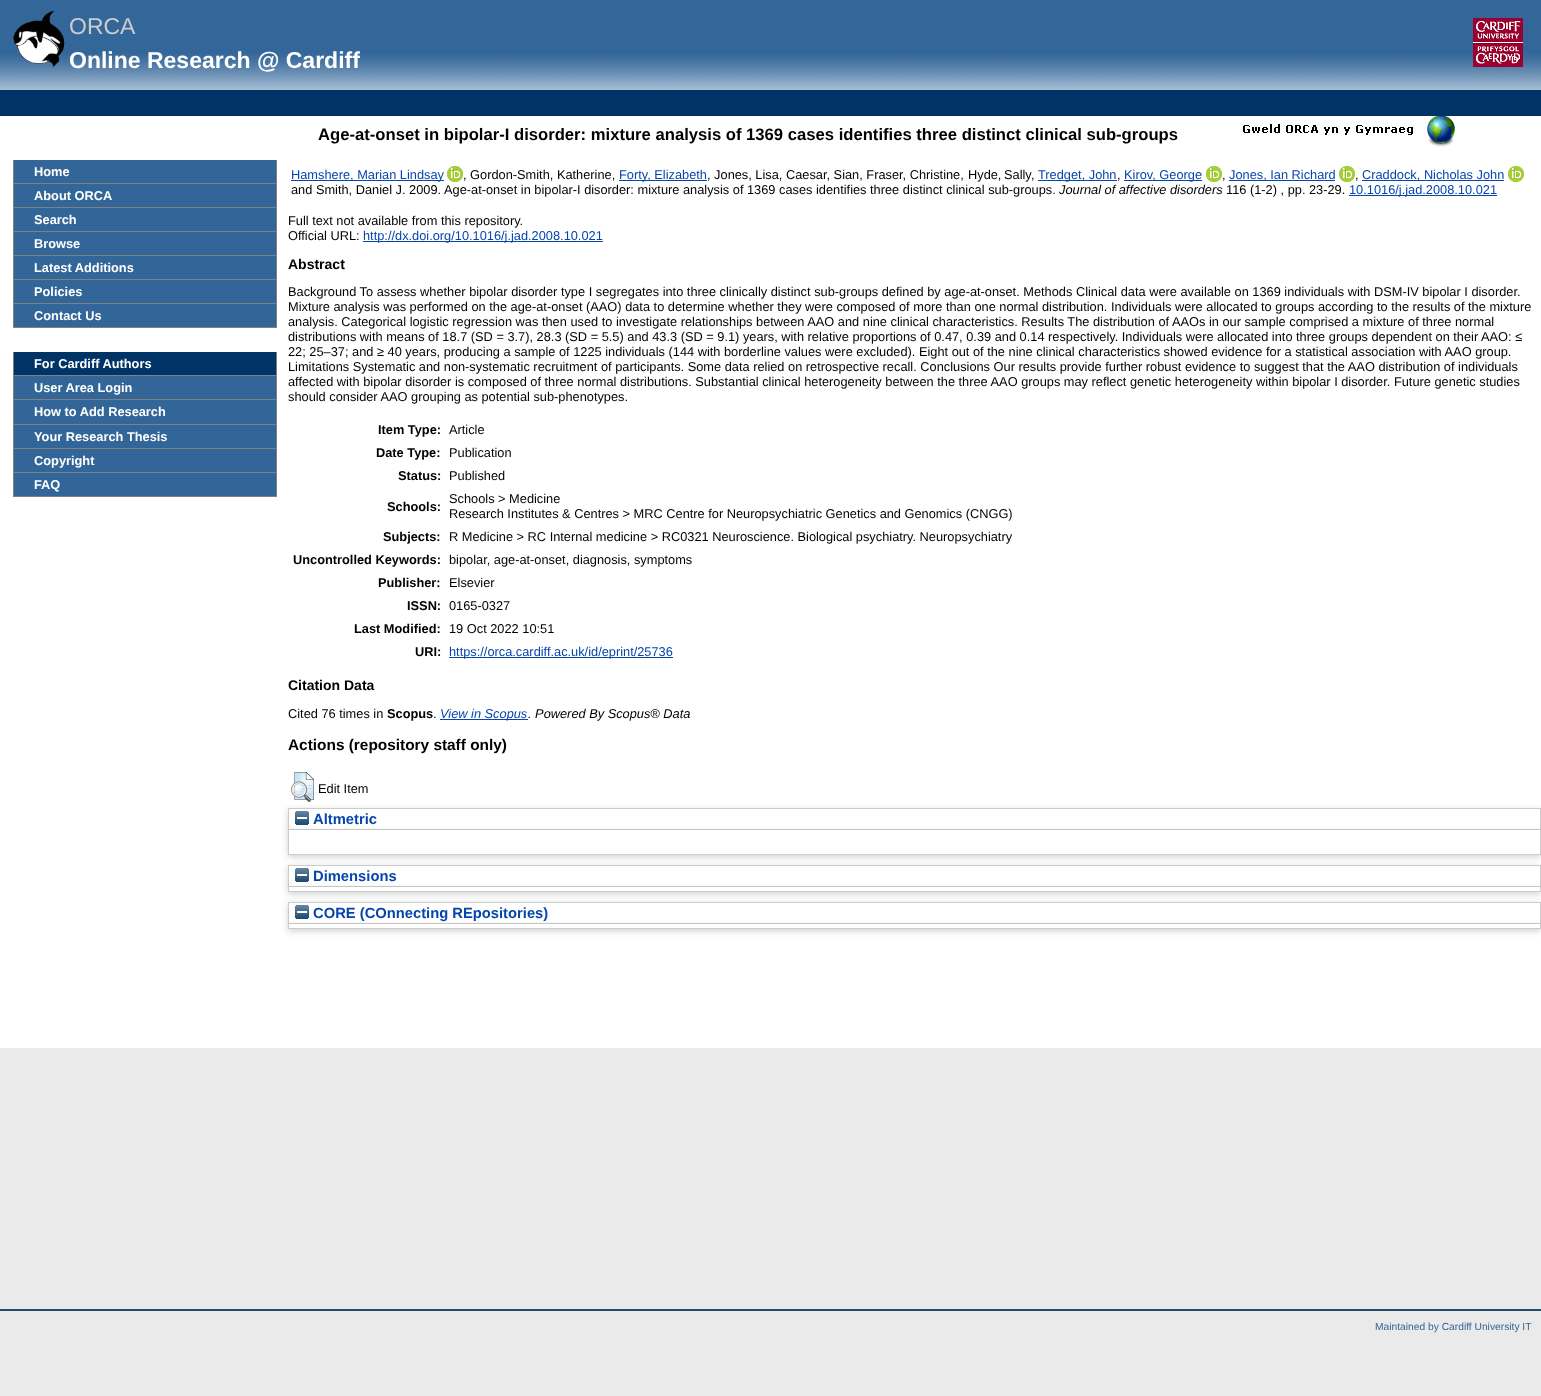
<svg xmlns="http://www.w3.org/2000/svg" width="1541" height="1396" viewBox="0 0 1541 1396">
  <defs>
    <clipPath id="clip1"><path d="M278 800H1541V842H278ZM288 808H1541V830H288Z" clip-rule="evenodd"/></clipPath>
    <filter id="blur1" x="-50%" y="-200%" width="200%" height="500%"><feGaussianBlur stdDeviation="3"/></filter>
    <clipPath id="clip2"><path d="M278 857H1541V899H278ZM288 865H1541V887H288Z" clip-rule="evenodd"/></clipPath>
    <clipPath id="clip3"><path d="M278 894H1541V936H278ZM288 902H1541V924H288Z" clip-rule="evenodd"/></clipPath>
  </defs>
  <rect width="100%" height="100%" fill="#eaeaea"/>
  <rect x="0" y="116" width="1541" height="932" fill="#ffffff"/>
  <image x="0" y="0" width="1541" height="90" href="img1.png"/>
  <image x="13" y="10" width="52" height="57" href="img2.png"/>
  <text x="69" y="34" font-family="Liberation Sans" font-size="23" fill="#cccccc">ORCA</text>
  <image x="1473" y="18" width="50" height="49" href="img3.png"/>
  <text x="69" y="68" font-family="Liberation Sans" font-size="23" font-weight="bold" fill="#ffffff">Online Research @ Cardiff</text>
  <rect x="0" y="90" width="1541" height="26" fill="#003466"/>
  <image x="1243" y="124" width="170" height="11" href="img4.png"/>
  <image x="1427" y="116" width="28" height="31" href="img5.png"/>
  <rect x="14" y="160" width="262" height="23" fill="#326699"/>
  <rect x="276" y="160" width="1" height="168" fill="#808080"/>
  <rect x="13" y="183" width="264" height="1" fill="#808080"/>
  <rect x="13" y="160" width="1" height="24" fill="#808080"/>
  <text x="34" y="176" font-family="Liberation Sans" font-size="12.8" font-weight="bold" fill="#ffffff">Home</text>
  <rect x="14" y="184" width="262" height="23" fill="#326699"/>
  <rect x="13" y="207" width="264" height="1" fill="#808080"/>
  <rect x="13" y="184" width="1" height="24" fill="#808080"/>
  <text x="34" y="200" font-family="Liberation Sans" font-size="12.8" font-weight="bold" fill="#ffffff">About ORCA</text>
  <rect x="14" y="208" width="262" height="23" fill="#326699"/>
  <rect x="13" y="231" width="264" height="1" fill="#808080"/>
  <rect x="13" y="208" width="1" height="24" fill="#808080"/>
  <text x="34" y="224" font-family="Liberation Sans" font-size="12.8" font-weight="bold" fill="#ffffff">Search</text>
  <rect x="14" y="232" width="262" height="23" fill="#326699"/>
  <rect x="13" y="255" width="264" height="1" fill="#808080"/>
  <rect x="13" y="232" width="1" height="24" fill="#808080"/>
  <text x="34" y="248" font-family="Liberation Sans" font-size="12.8" font-weight="bold" fill="#ffffff">Browse</text>
  <rect x="14" y="256" width="262" height="23" fill="#326699"/>
  <rect x="13" y="279" width="264" height="1" fill="#808080"/>
  <rect x="13" y="256" width="1" height="24" fill="#808080"/>
  <text x="34" y="272" font-family="Liberation Sans" font-size="12.8" font-weight="bold" fill="#ffffff">Latest Additions</text>
  <rect x="14" y="280" width="262" height="23" fill="#326699"/>
  <rect x="13" y="303" width="264" height="1" fill="#808080"/>
  <rect x="13" y="280" width="1" height="24" fill="#808080"/>
  <text x="34" y="296" font-family="Liberation Sans" font-size="12.8" font-weight="bold" fill="#ffffff">Policies</text>
  <rect x="14" y="304" width="262" height="23" fill="#326699"/>
  <rect x="13" y="327" width="264" height="1" fill="#808080"/>
  <rect x="13" y="304" width="1" height="24" fill="#808080"/>
  <text x="34" y="320" font-family="Liberation Sans" font-size="12.8" font-weight="bold" fill="#ffffff">Contact Us</text>
  <rect x="14" y="352" width="262" height="23" fill="#003466"/>
  <rect x="276" y="352" width="1" height="145" fill="#808080"/>
  <rect x="13" y="375" width="264" height="1" fill="#808080"/>
  <rect x="13" y="352" width="1" height="24" fill="#808080"/>
  <text x="34" y="368" font-family="Liberation Sans" font-size="12.8" font-weight="bold" fill="#ffffff">For Cardiff Authors</text>
  <rect x="14" y="376" width="262" height="23" fill="#326699"/>
  <rect x="13" y="399" width="264" height="1" fill="#808080"/>
  <rect x="13" y="376" width="1" height="24" fill="#808080"/>
  <text x="34" y="392" font-family="Liberation Sans" font-size="12.8" font-weight="bold" fill="#ffffff">User Area Login</text>
  <rect x="14" y="400" width="262" height="24" fill="#326699"/>
  <rect x="13" y="424" width="264" height="1" fill="#808080"/>
  <rect x="13" y="400" width="1" height="25" fill="#808080"/>
  <text x="34" y="416" font-family="Liberation Sans" font-size="12.8" font-weight="bold" fill="#ffffff">How to Add Research</text>
  <rect x="14" y="425" width="262" height="23" fill="#326699"/>
  <rect x="13" y="448" width="264" height="1" fill="#808080"/>
  <rect x="13" y="425" width="1" height="24" fill="#808080"/>
  <text x="34" y="441" font-family="Liberation Sans" font-size="12.8" font-weight="bold" fill="#ffffff">Your Research Thesis</text>
  <rect x="14" y="449" width="262" height="23" fill="#326699"/>
  <rect x="13" y="472" width="264" height="1" fill="#808080"/>
  <rect x="13" y="449" width="1" height="24" fill="#808080"/>
  <text x="34" y="465" font-family="Liberation Sans" font-size="12.8" font-weight="bold" fill="#ffffff">Copyright</text>
  <rect x="14" y="473" width="262" height="23" fill="#326699"/>
  <rect x="13" y="496" width="264" height="1" fill="#808080"/>
  <rect x="13" y="473" width="1" height="24" fill="#808080"/>
  <text x="34" y="489" font-family="Liberation Sans" font-size="12.8" font-weight="bold" fill="#ffffff">FAQ</text>
  <text x="318" y="140" font-family="Liberation Sans" font-size="16.65" font-weight="bold" fill="#000000">Age-at-onset in bipolar-I disorder: mixture analysis of 1369 cases identifies three distinct clinical sub-groups</text>
  <rect x="291" y="180" width="153" height="1" fill="#0645ad"/>
  <text x="291" y="179" font-family="Liberation Sans" font-size="12.8" fill="#0645ad">Hamshere, Marian Lindsay</text>
  <image x="447" y="166" width="16" height="16" href="img6.png"/>
  <text x="463" y="179" font-family="Liberation Sans" font-size="12.8" fill="#000000">, Gordon-Smith, Katherine,</text>
  <rect x="619" y="180" width="88" height="1" fill="#0645ad"/>
  <text x="619" y="179" font-family="Liberation Sans" font-size="12.8" fill="#0645ad">Forty, Elizabeth</text>
  <text x="707" y="179" font-family="Liberation Sans" font-size="12.8" fill="#000000">, Jones, Lisa, Caesar, Sian, Fraser, Christine,</text>
  <text x="968" y="179" word-spacing="-1" font-family="Liberation Sans" font-size="12.8" fill="#000000">Hyde, Sally</text>
  <text x="1031" y="179" font-family="Liberation Sans" font-size="12.8" fill="#000000">,</text>
  <rect x="1038" y="180" width="79" height="1" fill="#0645ad"/>
  <text x="1038" y="179" font-family="Liberation Sans" font-size="12.8" fill="#0645ad">Tredget, John</text>
  <text x="1117" y="179" font-family="Liberation Sans" font-size="12.8" fill="#000000">,</text>
  <rect x="1124" y="180" width="78" height="1" fill="#0645ad"/>
  <text x="1124" y="179" font-family="Liberation Sans" font-size="12.8" fill="#0645ad">Kirov, George</text>
  <image x="1206" y="166" width="16" height="16" href="img6.png"/>
  <text x="1222" y="179" font-family="Liberation Sans" font-size="12.8" fill="#000000">,</text>
  <rect x="1229" y="180" width="106" height="1" fill="#0645ad"/>
  <text x="1229" y="179" font-family="Liberation Sans" font-size="12.8" fill="#0645ad">Jones, Ian Richard</text>
  <image x="1339" y="166" width="16" height="16" href="img6.png"/>
  <text x="1355" y="179" font-family="Liberation Sans" font-size="12.8" fill="#000000">,</text>
  <rect x="1362" y="180" width="142" height="1" fill="#0645ad"/>
  <text x="1362" y="179" font-family="Liberation Sans" font-size="12.8" fill="#0645ad">Craddock, Nicholas John</text>
  <image x="1508" y="166" width="16" height="16" href="img6.png"/>
  <text x="291" y="194" font-family="Liberation Sans" font-size="12.8" fill="#000000">and Smith, Daniel J. 2009.</text>
  <text x="444" y="194" font-family="Liberation Sans" font-size="12.8" fill="#000000">Age-at-onset in bipolar-I disorder: mixture analysis of 1369 cases identifies three distinct clinical sub-groups.</text>
  <text x="1059" y="194" font-family="Liberation Sans" font-size="12.8" font-style="italic" fill="#000000">Journal of affective disorders</text>
  <text x="1226" y="194" font-family="Liberation Sans" font-size="12.8" fill="#000000">116 (1-2) , pp. 23-29.</text>
  <rect x="1349" y="195" width="148" height="1" fill="#0645ad"/>
  <text x="1349" y="194" font-family="Liberation Sans" font-size="12.8" fill="#0645ad">10.1016/j.jad.2008.10.021</text>
  <text x="288" y="225" font-family="Liberation Sans" font-size="12.8" fill="#000000">Full text not available from this repository.</text>
  <text x="288" y="240" font-family="Liberation Sans" font-size="12.8" fill="#000000">Official URL:</text>
  <rect x="363" y="241" width="240" height="1" fill="#0645ad"/>
  <text x="363" y="240" font-family="Liberation Sans" font-size="12.8" fill="#0645ad">http://dx.doi.org/10.1016/j.jad.2008.10.021</text>
  <text x="288" y="269" font-family="Liberation Sans" font-size="14" font-weight="bold" fill="#000000">Abstract</text>
  <text x="288" y="296" font-family="Liberation Sans" font-size="12.8" fill="#000000">Background To assess whether bipolar disorder type I segregates into three clinically distinct sub-groups defined by age-at-onset. Methods Clinical data were available on 1369 individuals with DSM-IV bipolar I disorder.</text>
  <text x="288" y="311" font-family="Liberation Sans" font-size="12.8" fill="#000000">Mixture analysis was performed on the age-at-onset (AAO) data to determine whether they were composed of more than one normal distribution. Individuals were allocated to groups according to the results of the mixture</text>
  <text x="288" y="326" font-family="Liberation Sans" font-size="12.8" fill="#000000">analysis. Categorical logistic regression was then used to investigate relationships between AAO and nine clinical characteristics. Results The distribution of AAOs in our sample comprised a mixture of three normal</text>
  <text x="288" y="341" font-family="Liberation Sans" font-size="12.8" fill="#000000">distributions with means of 18.7 (SD = 3.7), 28.3 (SD = 5.5) and 43.3 (SD = 9.1) years, with relative proportions of 0.47, 0.39 and 0.14 respectively. Individuals were allocated into three groups dependent on their AAO: ≤</text>
  <text x="288" y="356" font-family="Liberation Sans" font-size="12.8" fill="#000000">22; 25–37; and ≥ 40 years, producing a sample of 1225 individuals (144 with borderline values were excluded). Eight out of the nine clinical characteristics showed evidence for a statistical association with AAO group.</text>
  <text x="288" y="371" font-family="Liberation Sans" font-size="12.8" fill="#000000">Limitations Systematic and non-systematic recruitment of participants. Some data relied on retrospective recall. Conclusions Our results provide further robust evidence to suggest that the AAO distribution of individuals</text>
  <text x="288" y="386" font-family="Liberation Sans" font-size="12.8" fill="#000000">affected with bipolar disorder is composed of three normal distributions. Substantial clinical heterogeneity between the three AAO groups may reflect genetic heterogeneity within bipolar I disorder. Future genetic studies</text>
  <text x="288" y="401" font-family="Liberation Sans" font-size="12.8" fill="#000000">should consider AAO grouping as potential sub-phenotypes.</text>
  <text x="378" y="434" font-family="Liberation Sans" font-size="12.8" font-weight="bold" fill="#000000">Item Type:</text>
  <text x="449" y="434" font-family="Liberation Sans" font-size="12.8" fill="#000000">Article</text>
  <text x="376" y="457" font-family="Liberation Sans" font-size="12.8" font-weight="bold" fill="#000000">Date Type:</text>
  <text x="449" y="457" font-family="Liberation Sans" font-size="12.8" fill="#000000">Publication</text>
  <text x="398" y="480" font-family="Liberation Sans" font-size="12.8" font-weight="bold" fill="#000000">Status:</text>
  <text x="449" y="480" font-family="Liberation Sans" font-size="12.8" fill="#000000">Published</text>
  <text x="387" y="511" font-family="Liberation Sans" font-size="12.8" font-weight="bold" fill="#000000">Schools:</text>
  <text x="449" y="503" font-family="Liberation Sans" font-size="12.8" fill="#000000">Schools &gt; Medicine</text>
  <text x="449" y="518" font-family="Liberation Sans" font-size="12.8" fill="#000000">Research Institutes &amp; Centres &gt; MRC Centre for Neuropsychiatric Genetics and Genomics (CNGG)</text>
  <text x="383" y="541" font-family="Liberation Sans" font-size="12.8" font-weight="bold" fill="#000000">Subjects:</text>
  <text x="449" y="541" font-family="Liberation Sans" font-size="12.8" fill="#000000">R Medicine &gt; RC Internal medicine &gt; RC0321 Neuroscience. Biological psychiatry. Neuropsychiatry</text>
  <text x="293" y="564" font-family="Liberation Sans" font-size="12.8" font-weight="bold" fill="#000000">Uncontrolled Keywords:</text>
  <text x="449" y="564" font-family="Liberation Sans" font-size="12.8" fill="#000000">bipolar, age-at-onset, diagnosis, symptoms</text>
  <text x="378" y="587" font-family="Liberation Sans" font-size="12.8" font-weight="bold" fill="#000000">Publisher:</text>
  <text x="449" y="587" font-family="Liberation Sans" font-size="12.8" fill="#000000">Elsevier</text>
  <text x="407" y="610" font-family="Liberation Sans" font-size="12.8" font-weight="bold" fill="#000000">ISSN:</text>
  <text x="449" y="610" font-family="Liberation Sans" font-size="12.8" fill="#000000">0165-0327</text>
  <text x="354" y="633" font-family="Liberation Sans" font-size="12.8" font-weight="bold" fill="#000000">Last Modified:</text>
  <text x="449" y="633" font-family="Liberation Sans" font-size="12.8" fill="#000000">19 Oct 2022 10:51</text>
  <text x="415" y="656" font-family="Liberation Sans" font-size="12.8" font-weight="bold" fill="#000000">URI:</text>
  <rect x="449" y="657" width="224" height="1" fill="#0645ad"/>
  <text x="449" y="656" font-family="Liberation Sans" font-size="12.8" fill="#0645ad">https://orca.cardiff.ac.uk/id/eprint/25736</text>
  <text x="288" y="690" font-family="Liberation Sans" font-size="14" font-weight="bold" fill="#000000">Citation Data</text>
  <text x="288" y="718" font-family="Liberation Sans" font-size="12.8" fill="#000000">Cited 76 times in</text>
  <text x="387" y="718" font-family="Liberation Sans" font-size="12.8" font-weight="bold" fill="#000000">Scopus</text>
  <text x="433" y="718" font-family="Liberation Sans" font-size="12.8" fill="#000000">.</text>
  <rect x="440" y="719" width="88" height="1" fill="#0645ad"/>
  <text x="440" y="718" font-family="Liberation Sans" font-size="12.8" font-style="italic" fill="#0645ad">View in Scopus</text>
  <text x="528" y="718" font-family="Liberation Sans" font-size="12.8" font-style="italic" fill="#000000">. Powered By Scopus® Data</text>
  <text x="288" y="750" font-family="Liberation Sans" font-size="15.4" font-weight="bold" fill="#000000">Actions (repository staff only)</text>
  <g clip-path="url(#clip1)">
    <rect x="288" y="810" width="1253" height="22" fill="#646464" fill-opacity="0.3" filter="url(#blur1)"/>
  </g>
  <image x="291" y="772" width="23" height="30" href="img7.png"/>
  <text x="318" y="793" font-family="Liberation Sans" font-size="12.8" fill="#000000">Edit Item</text>
  <rect x="288.5" y="808.5" width="1252" height="21" fill="none" stroke="#cccccc"/>
  <rect x="288" y="832" width="1253" height="25" fill="#646464" fill-opacity="0.3" filter="url(#blur1)"/>
  <image x="295" y="811" width="14" height="14" href="img8.png"/>
  <text x="313" y="824" font-family="Liberation Sans" font-size="14.75" font-weight="bold" fill="#0645ad">Altmetric</text>
  <rect x="289" y="830" width="1251" height="24" fill="#ffffff"/>
  <rect x="1540" y="830" width="1" height="25" fill="#cccccc"/>
  <rect x="288" y="854" width="1253" height="1" fill="#cccccc"/>
  <rect x="288" y="830" width="1" height="25" fill="#cccccc"/>
  <g clip-path="url(#clip2)">
    <rect x="288" y="867" width="1253" height="22" fill="#646464" fill-opacity="0.3" filter="url(#blur1)"/>
  </g>
  <rect x="288.5" y="865.5" width="1252" height="21" fill="none" stroke="#cccccc"/>
  <rect x="288" y="889" width="1253" height="5" fill="#646464" fill-opacity="0.3" filter="url(#blur1)"/>
  <image x="295" y="868" width="14" height="14" href="img8.png"/>
  <text x="313" y="881" font-family="Liberation Sans" font-size="14.75" font-weight="bold" fill="#0645ad">Dimensions</text>
  <rect x="288" y="887" width="1253" height="4" fill="#ffffff"/>
  <rect x="1540" y="887" width="1" height="5" fill="#cccccc"/>
  <rect x="288" y="891" width="1253" height="1" fill="#cccccc"/>
  <rect x="288" y="887" width="1" height="5" fill="#cccccc"/>
  <g clip-path="url(#clip3)">
    <rect x="288" y="904" width="1253" height="22" fill="#646464" fill-opacity="0.3" filter="url(#blur1)"/>
  </g>
  <rect x="288.5" y="902.5" width="1252" height="21" fill="none" stroke="#cccccc"/>
  <rect x="288" y="926" width="1253" height="5" fill="#646464" fill-opacity="0.3" filter="url(#blur1)"/>
  <image x="295" y="905" width="14" height="14" href="img8.png"/>
  <text x="313" y="918" font-family="Liberation Sans" font-size="14.75" font-weight="bold" fill="#0645ad">CORE (COnnecting REpositories)</text>
  <rect x="288" y="924" width="1253" height="4" fill="#ffffff"/>
  <rect x="1540" y="924" width="1" height="5" fill="#cccccc"/>
  <rect x="288" y="928" width="1253" height="1" fill="#cccccc"/>
  <rect x="288" y="924" width="1" height="5" fill="#cccccc"/>
  <rect x="0" y="1309" width="1541" height="2" fill="#204f76"/>
  <text x="1375" y="1330" font-family="Liberation Sans" font-size="10.25" fill="#336699">Maintained by Cardiff University IT</text>
</svg>
